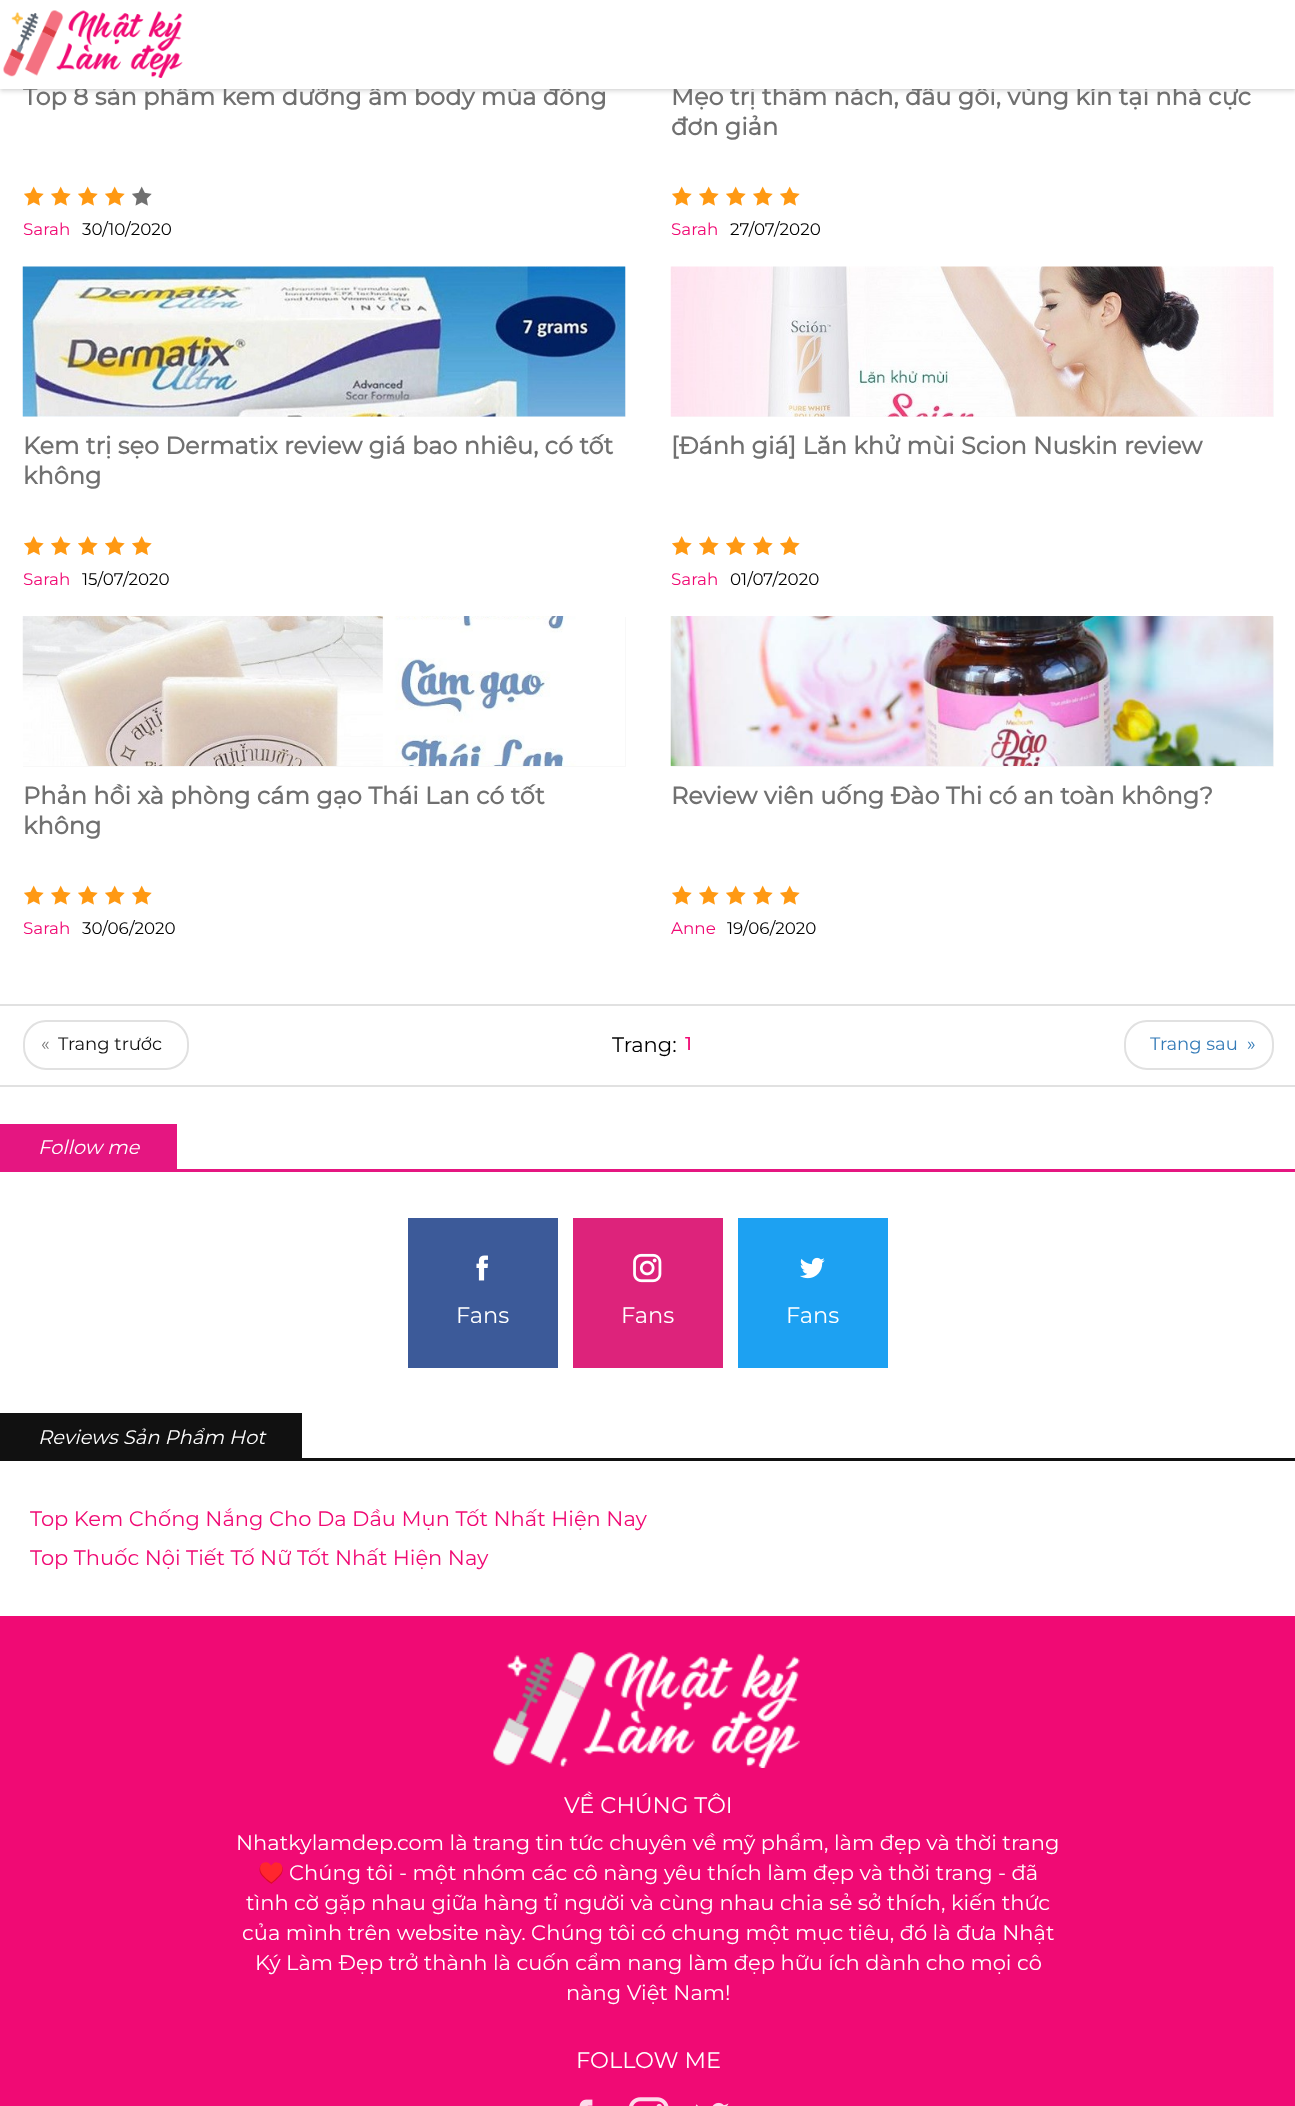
<svg xmlns="http://www.w3.org/2000/svg" width="1295" height="2106" viewBox="0 0 1295 2106">
  <defs>
    <filter id="blur1" x="-50%" y="-200%" width="200%" height="500%"><feGaussianBlur stdDeviation="2"/></filter>
    <filter id="blur2" x="-50%" y="-200%" width="200%" height="500%"><feGaussianBlur stdDeviation="1.5"/></filter>
  </defs>
  <rect width="100%" height="100%" fill="#ffffff"/>
  <rect x="0" y="3" width="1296" height="89" fill="#000000" fill-opacity="0.1" filter="url(#blur1)"/>
  <rect x="0" y="0" width="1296" height="89" fill="#000000" fill-opacity="0.1" filter="url(#blur2)"/>
  <text x="23" y="105" font-family="Montserrat" font-size="24" font-weight="bold" fill="#707070">Top 8 sản phẩm kem dưỡng ẩm body mùa đông</text>
  <text x="671" y="105" font-family="Montserrat" font-size="24" font-weight="bold" fill="#707070">Mẹo trị thâm nách, đầu gối, vùng kín tại nhà cực</text>
  <rect x="0" y="0" width="1295" height="89" fill="#ffffff"/>
  <image x="3" y="10" width="180" height="68" href="img1.png"/>
  <image x="24" y="186" width="20" height="20" href="img2.png"/>
  <image x="51" y="186" width="20" height="20" href="img2.png"/>
  <image x="78" y="186" width="20" height="20" href="img2.png"/>
  <image x="105" y="186" width="20" height="20" href="img2.png"/>
  <image x="132" y="186" width="20" height="20" href="img3.png"/>
  <text x="23" y="235" font-family="Montserrat" font-size="16.75" fill="#f00a74">Sarah</text>
  <text x="82" y="235" font-family="Montserrat" font-size="16.75" fill="#000000">30/10/2020</text>
  <text x="671" y="135" font-family="Montserrat" font-size="24" font-weight="bold" fill="#707070">đơn giản</text>
  <image x="672" y="186" width="20" height="20" href="img2.png"/>
  <image x="699" y="186" width="20" height="20" href="img2.png"/>
  <image x="726" y="186" width="20" height="20" href="img2.png"/>
  <image x="753" y="186" width="20" height="20" href="img2.png"/>
  <image x="780" y="186" width="20" height="20" href="img2.png"/>
  <text x="671" y="235" font-family="Montserrat" font-size="16.75" fill="#f00a74">Sarah</text>
  <text x="730" y="235" font-family="Montserrat" font-size="16.75" fill="#000000">27/07/2020</text>
  <rect x="23" y="267" width="603" height="150" fill="#f8f8f8"/>
  <image x="22" y="266" width="604" height="151" href="img4.png"/>
  <text x="23" y="454" font-family="Montserrat" font-size="24" font-weight="bold" fill="#707070">Kem trị sẹo Dermatix review giá bao nhiêu, có tốt</text>
  <text x="23" y="484" font-family="Montserrat" font-size="24" font-weight="bold" fill="#707070">không</text>
  <image x="24" y="536" width="20" height="19" href="img5.png"/>
  <image x="51" y="536" width="20" height="19" href="img5.png"/>
  <image x="78" y="536" width="20" height="19" href="img5.png"/>
  <image x="105" y="536" width="20" height="19" href="img5.png"/>
  <image x="132" y="536" width="20" height="19" href="img5.png"/>
  <text x="23" y="585" font-family="Montserrat" font-size="16.75" fill="#f00a74">Sarah</text>
  <text x="82" y="585" font-family="Montserrat" font-size="16.75" fill="#000000">15/07/2020</text>
  <rect x="671" y="267" width="603" height="150" fill="#f8f8f8"/>
  <image x="670" y="266" width="603" height="151" href="img6.png"/>
  <text x="671" y="454" font-family="Montserrat" font-size="24" font-weight="bold" fill="#707070">[Đánh giá] Lăn khử mùi Scion Nuskin review</text>
  <image x="672" y="536" width="20" height="19" href="img5.png"/>
  <image x="699" y="536" width="20" height="19" href="img5.png"/>
  <image x="726" y="536" width="20" height="19" href="img5.png"/>
  <image x="753" y="536" width="20" height="19" href="img5.png"/>
  <image x="780" y="536" width="20" height="19" href="img5.png"/>
  <text x="671" y="585" font-family="Montserrat" font-size="16.75" fill="#f00a74">Sarah</text>
  <text x="730" y="585" font-family="Montserrat" font-size="16.75" fill="#000000">01/07/2020</text>
  <rect x="23" y="617" width="603" height="150" fill="#f8f8f8"/>
  <image x="22" y="616" width="603" height="150" href="img7.png"/>
  <text x="23" y="804" font-family="Montserrat" font-size="24" font-weight="bold" fill="#707070">Phản hồi xà phòng cám gạo Thái Lan có tốt</text>
  <text x="23" y="834" font-family="Montserrat" font-size="24" font-weight="bold" fill="#707070">không</text>
  <image x="24" y="885" width="20" height="20" href="img2.png"/>
  <image x="51" y="885" width="20" height="20" href="img2.png"/>
  <image x="78" y="885" width="20" height="20" href="img2.png"/>
  <image x="105" y="885" width="20" height="20" href="img2.png"/>
  <image x="132" y="885" width="20" height="20" href="img2.png"/>
  <text x="23" y="934" font-family="Montserrat" font-size="16.75" fill="#f00a74">Sarah</text>
  <text x="82" y="934" font-family="Montserrat" font-size="16.75" fill="#000000">30/06/2020</text>
  <rect x="671" y="617" width="603" height="150" fill="#f8f8f8"/>
  <image x="670" y="616" width="604" height="150" href="img8.png"/>
  <text x="671" y="804" font-family="Montserrat" font-size="24" font-weight="bold" fill="#707070">Review viên uống Đào Thi có an toàn không?</text>
  <image x="672" y="885" width="20" height="20" href="img2.png"/>
  <image x="699" y="885" width="20" height="20" href="img2.png"/>
  <image x="726" y="885" width="20" height="20" href="img2.png"/>
  <image x="753" y="885" width="20" height="20" href="img2.png"/>
  <image x="780" y="885" width="20" height="20" href="img2.png"/>
  <text x="671" y="934" font-family="Montserrat" font-size="16.75" fill="#f00a74">Anne</text>
  <text x="727" y="934" font-family="Montserrat" font-size="16.75" fill="#000000">19/06/2020</text>
  <rect x="0" y="1004" width="1295" height="2" fill="#e1e1e1"/>
  <rect x="0" y="1085" width="1295" height="2" fill="#e1e1e1"/>
  <rect x="24" y="1021" width="164" height="48" rx="22" fill="none" stroke="#e1e1e1" stroke-width="2"/>
  <text x="41" y="1050" font-family="Montserrat" font-size="18" fill="#777777">«</text>
  <text x="58" y="1050" font-family="Montserrat" font-size="18" fill="#111111">Trang trước</text>
  <text x="612" y="1052" font-family="Montserrat" font-size="21" fill="#000000">Trang:</text>
  <text x="685" y="1050" font-family="Montserrat" font-size="18" font-weight="bold" fill="#f00a74">1</text>
  <rect x="1125" y="1021" width="148" height="48" rx="22" fill="none" stroke="#e1e1e1" stroke-width="2"/>
  <text x="1150" y="1050" font-family="Montserrat" font-size="18" fill="#337ab7">Trang sau</text>
  <text x="1247" y="1050" font-family="Montserrat" font-size="18" fill="#337ab7">»</text>
  <rect x="0" y="1169" width="1295" height="3" fill="#e51681"/>
  <rect x="0" y="1124" width="177" height="45" fill="#e51681"/>
  <text x="38" y="1154" font-family="Montserrat" font-size="19.5" font-style="italic" fill="#ffffff">Follow me</text>
  <rect x="408" y="1218" width="150" height="150" fill="#3c5a99"/>
  <image x="476" y="1255" width="12" height="26" href="img9.png"/>
  <text x="456" y="1323" font-family="Montserrat" font-size="22.5" fill="#ffffff">Fans</text>
  <rect x="573" y="1218" width="150" height="150" fill="#dd237b"/>
  <image x="633" y="1253" width="29" height="30" href="img10.png"/>
  <text x="621" y="1323" font-family="Montserrat" font-size="22.5" fill="#ffffff">Fans</text>
  <rect x="738" y="1218" width="150" height="150" fill="#1da1f2"/>
  <image x="800" y="1257" width="25" height="22" href="img11.png"/>
  <text x="786" y="1323" font-family="Montserrat" font-size="22.5" fill="#ffffff">Fans</text>
  <rect x="0" y="1458" width="1295" height="3" fill="#111111"/>
  <rect x="0" y="1413" width="302" height="45" fill="#111111"/>
  <text x="38" y="1444" font-family="Montserrat" font-size="19.5" font-style="italic" fill="#ffffff">Reviews Sản Phẩm Hot</text>
  <text x="30" y="1526" font-family="Montserrat" font-size="21" fill="#f00a74">Top Kem Chống Nắng Cho Da Dầu Mụn Tốt Nhất Hiện Nay</text>
  <text x="30" y="1565" font-family="Montserrat" font-size="21" fill="#f00a74">Top Thuốc Nội Tiết Tố Nữ Tốt Nhất Hiện Nay</text>
  <rect x="0" y="1616" width="1295" height="490" fill="#f00a74"/>
  <image x="493" y="1652" width="307" height="116" href="img12.png"/>
  <text x="564" y="1813" font-family="Montserrat" font-size="22.5" fill="#ffffff">VỀ CHÚNG TÔI</text>
  <text x="236" y="1850" font-family="Montserrat" font-size="21" fill="#ffffff">Nhatkylamdep.com là trang tin tức chuyên về mỹ phẩm, làm đẹp và thời trang</text>
  <text x="258" y="1880" font-family="Noto Color Emoji" font-size="21" fill="#ffffff">♥️</text>
  <text x="289" y="1880" font-family="Montserrat" font-size="21" fill="#ffffff">Chúng tôi - một nhóm các cô nàng yêu thích làm đẹp và thời trang - đã</text>
  <text x="246" y="1910" font-family="Montserrat" font-size="21" fill="#ffffff">tình cờ gặp nhau giữa hàng tỉ người và cùng nhau chia sẻ sở thích, kiến thức</text>
  <text x="242" y="1940" font-family="Montserrat" font-size="21" fill="#ffffff">của mình trên website này. Chúng tôi có chung một mục tiêu, đó là đưa Nhật</text>
  <text x="255" y="1970" font-family="Montserrat" font-size="21" fill="#ffffff">Ký Làm Đẹp trở thành là cuốn cẩm nang làm đẹp hữu ích dành cho mọi cô</text>
  <text x="566" y="2000" font-family="Montserrat" font-size="21" fill="#ffffff">nàng Việt Nam!</text>
  <text x="576" y="2068" font-family="Montserrat" font-size="22.5" fill="#ffffff">FOLLOW ME</text>
  <image x="579" y="2099" width="14" height="7" href="img13.png"/>
  <image x="629" y="2097" width="40" height="9" href="img14.png"/>
  <image x="695" y="2102" width="34" height="4" href="img15.png"/>
</svg>
